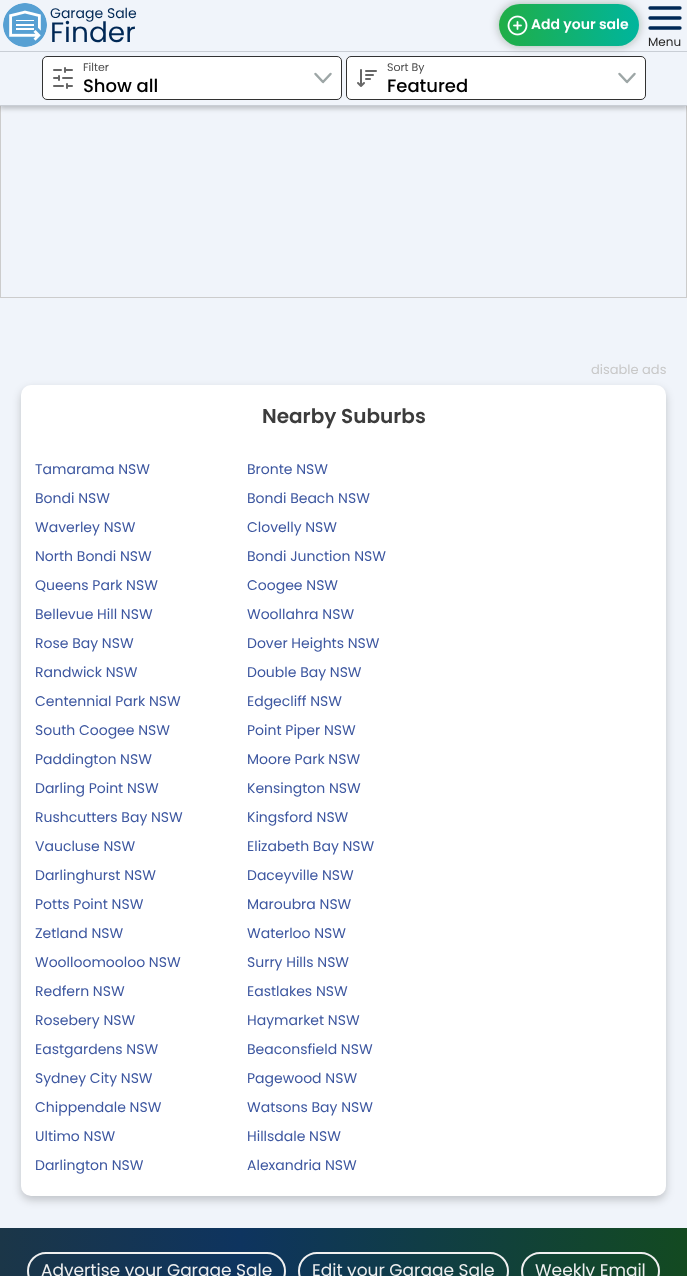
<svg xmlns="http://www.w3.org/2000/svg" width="687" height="1276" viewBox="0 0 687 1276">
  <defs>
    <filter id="blur1" x="-50%" y="-200%" width="200%" height="500%"><feGaussianBlur stdDeviation="2"/></filter>
    <filter id="blur2" x="-50%" y="-200%" width="200%" height="500%"><feGaussianBlur stdDeviation="5"/></filter>
    <linearGradient id="g1" gradientUnits="userSpaceOnUse" x1="499" y1="25" x2="639" y2="25"><stop offset="0" stop-color="#20ae46"/><stop offset="1" stop-color="#00b59d"/></linearGradient>
    <filter id="blur3" x="-50%" y="-200%" width="200%" height="500%"><feGaussianBlur stdDeviation="4"/></filter>
    <linearGradient id="g2" gradientUnits="userSpaceOnUse" x1="0" y1="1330" x2="687" y2="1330"><stop offset="0" stop-color="#1b3648"/><stop offset="0.35" stop-color="#0e345f"/><stop offset="1" stop-color="#134a21"/></linearGradient>
  </defs>
  <rect width="100%" height="100%" fill="#f0f4fa"/>
  <rect x="0.5" y="16.5" width="686" height="281" fill="none" stroke="#cccccc"/>
  <rect x="0" y="54" width="687" height="55" fill="#000000" fill-opacity="0.2" filter="url(#blur1)"/>
  <rect x="0" y="16" width="687" height="35" fill="#f0f4fa"/>
  <rect x="0" y="51" width="687" height="1" fill="#c9ced5"/>
  <image x="3" y="3" width="44" height="44" href="img1.png"/>
  <text x="50" y="18" font-family="Poppins" font-size="14" fill="#002855">Garage Sale</text>
  <text x="50" y="42" font-family="Poppins" font-size="28" fill="#002855">Finder</text>
  <rect x="0" y="52" width="687" height="53" fill="#f0f4fa"/>
  <rect x="346.5" y="56.5" width="299" height="43" rx="4.5" fill="#ffffff" stroke="#323232"/>
  <rect x="499" y="4" width="140" height="42" rx="21" fill="#052407" fill-opacity="0.33" filter="url(#blur2)"/>
  <rect x="499" y="4" width="140" height="42" rx="21" fill="url(#g1)"/>
  <image x="507" y="15" width="21" height="21" href="img2.png"/>
  <text x="531" y="29" font-family="Poppins" font-size="14" font-weight="600" fill="#ffffff">Add your sale</text>
  <path d="M650 18H680M650 8H680M650 28H680" fill="none" stroke="#002855" stroke-width="3.3" stroke-linecap="round" stroke-linejoin="round"/>
  <text x="648" y="46" font-family="Poppins" font-size="12" fill="#252525">Menu</text>
  <rect x="0" y="105" width="687" height="1" fill="#c9ced5"/>
  <rect x="42.5" y="56.5" width="299" height="43" rx="4.5" fill="#ffffff" stroke="#323232"/>
  <image x="53" y="67" width="20" height="22" href="img3.png"/>
  <text x="83" y="71" font-family="Poppins" font-size="11" fill="#4b4b4b">Filter</text>
  <path d="M315.5 74L323 82L330.5 74" fill="none" stroke="#9da6a6" stroke-width="2.5" stroke-linecap="round" stroke-linejoin="round"/>
  <text x="83" y="92" font-family="Poppins" font-size="18" font-weight="500" fill="#000000">Show all</text>
  <image x="357" y="69" width="20" height="18" href="img4.png"/>
  <text x="387" y="71" font-family="Poppins" font-size="11" fill="#4b4b4b">Sort By</text>
  <path d="M619.5 74L627 82L634.5 74" fill="none" stroke="#9da6a6" stroke-width="2.5" stroke-linecap="round" stroke-linejoin="round"/>
  <text x="387" y="92" font-family="Poppins" font-size="18" font-weight="500" fill="#000000">Featured</text>
  <text x="591" y="374" font-family="Poppins" font-size="13" fill="#c8c8c8">disable ads</text>
  <rect x="21" y="389" width="645" height="811" rx="10" fill="#000000" fill-opacity="0.2" filter="url(#blur3)"/>
  <rect x="21" y="385" width="645" height="811" rx="10" fill="#ffffff"/>
  <text x="262" y="423" font-family="Poppins" font-size="20" font-weight="600" fill="#3c3c3c">Nearby Suburbs</text>
  <text x="35" y="474" font-family="Poppins" font-size="14" fill="#3d57a0">Tamarama NSW</text>
  <text x="247" y="474" font-family="Poppins" font-size="14" fill="#3d57a0">Bronte NSW</text>
  <text x="35" y="503" font-family="Poppins" font-size="14" fill="#3d57a0">Bondi NSW</text>
  <text x="247" y="503" font-family="Poppins" font-size="14" fill="#3d57a0">Bondi Beach NSW</text>
  <text x="35" y="532" font-family="Poppins" font-size="14" fill="#3d57a0">Waverley NSW</text>
  <text x="247" y="532" font-family="Poppins" font-size="14" fill="#3d57a0">Clovelly NSW</text>
  <text x="35" y="561" font-family="Poppins" font-size="14" fill="#3d57a0">North Bondi NSW</text>
  <text x="247" y="561" font-family="Poppins" font-size="14" fill="#3d57a0">Bondi Junction NSW</text>
  <text x="35" y="590" font-family="Poppins" font-size="14" fill="#3d57a0">Queens Park NSW</text>
  <text x="247" y="590" font-family="Poppins" font-size="14" fill="#3d57a0">Coogee NSW</text>
  <text x="35" y="619" font-family="Poppins" font-size="14" fill="#3d57a0">Bellevue Hill NSW</text>
  <text x="247" y="619" font-family="Poppins" font-size="14" fill="#3d57a0">Woollahra NSW</text>
  <text x="35" y="648" font-family="Poppins" font-size="14" fill="#3d57a0">Rose Bay NSW</text>
  <text x="247" y="648" font-family="Poppins" font-size="14" fill="#3d57a0">Dover Heights NSW</text>
  <text x="35" y="677" font-family="Poppins" font-size="14" fill="#3d57a0">Randwick NSW</text>
  <text x="247" y="677" font-family="Poppins" font-size="14" fill="#3d57a0">Double Bay NSW</text>
  <text x="35" y="706" font-family="Poppins" font-size="14" fill="#3d57a0">Centennial Park NSW</text>
  <text x="247" y="706" font-family="Poppins" font-size="14" fill="#3d57a0">Edgecliff NSW</text>
  <text x="35" y="735" font-family="Poppins" font-size="14" fill="#3d57a0">South Coogee NSW</text>
  <text x="247" y="735" font-family="Poppins" font-size="14" fill="#3d57a0">Point Piper NSW</text>
  <text x="35" y="764" font-family="Poppins" font-size="14" fill="#3d57a0">Paddington NSW</text>
  <text x="247" y="764" font-family="Poppins" font-size="14" fill="#3d57a0">Moore Park NSW</text>
  <text x="35" y="793" font-family="Poppins" font-size="14" fill="#3d57a0">Darling Point NSW</text>
  <text x="247" y="793" font-family="Poppins" font-size="14" fill="#3d57a0">Kensington NSW</text>
  <text x="35" y="822" font-family="Poppins" font-size="14" fill="#3d57a0">Rushcutters Bay NSW</text>
  <text x="247" y="822" font-family="Poppins" font-size="14" fill="#3d57a0">Kingsford NSW</text>
  <text x="35" y="851" font-family="Poppins" font-size="14" fill="#3d57a0">Vaucluse NSW</text>
  <text x="247" y="851" font-family="Poppins" font-size="14" fill="#3d57a0">Elizabeth Bay NSW</text>
  <text x="35" y="880" font-family="Poppins" font-size="14" fill="#3d57a0">Darlinghurst NSW</text>
  <text x="247" y="880" font-family="Poppins" font-size="14" fill="#3d57a0">Daceyville NSW</text>
  <text x="35" y="909" font-family="Poppins" font-size="14" fill="#3d57a0">Potts Point NSW</text>
  <text x="247" y="909" font-family="Poppins" font-size="14" fill="#3d57a0">Maroubra NSW</text>
  <text x="35" y="938" font-family="Poppins" font-size="14" fill="#3d57a0">Zetland NSW</text>
  <text x="247" y="938" font-family="Poppins" font-size="14" fill="#3d57a0">Waterloo NSW</text>
  <text x="35" y="967" font-family="Poppins" font-size="14" fill="#3d57a0">Woolloomooloo NSW</text>
  <text x="247" y="967" font-family="Poppins" font-size="14" fill="#3d57a0">Surry Hills NSW</text>
  <text x="35" y="996" font-family="Poppins" font-size="14" fill="#3d57a0">Redfern NSW</text>
  <text x="247" y="996" font-family="Poppins" font-size="14" fill="#3d57a0">Eastlakes NSW</text>
  <text x="35" y="1025" font-family="Poppins" font-size="14" fill="#3d57a0">Rosebery NSW</text>
  <text x="247" y="1025" font-family="Poppins" font-size="14" fill="#3d57a0">Haymarket NSW</text>
  <text x="35" y="1054" font-family="Poppins" font-size="14" fill="#3d57a0">Eastgardens NSW</text>
  <text x="247" y="1054" font-family="Poppins" font-size="14" fill="#3d57a0">Beaconsfield NSW</text>
  <text x="35" y="1083" font-family="Poppins" font-size="14" fill="#3d57a0">Sydney City NSW</text>
  <text x="247" y="1083" font-family="Poppins" font-size="14" fill="#3d57a0">Pagewood NSW</text>
  <text x="35" y="1112" font-family="Poppins" font-size="14" fill="#3d57a0">Chippendale NSW</text>
  <text x="247" y="1112" font-family="Poppins" font-size="14" fill="#3d57a0">Watsons Bay NSW</text>
  <text x="35" y="1141" font-family="Poppins" font-size="14" fill="#3d57a0">Ultimo NSW</text>
  <text x="247" y="1141" font-family="Poppins" font-size="14" fill="#3d57a0">Hillsdale NSW</text>
  <text x="35" y="1170" font-family="Poppins" font-size="14" fill="#3d57a0">Darlington NSW</text>
  <text x="247" y="1170" font-family="Poppins" font-size="14" fill="#3d57a0">Alexandria NSW</text>
  <rect x="0" y="1228" width="687" height="48" fill="url(#g2)"/>
  <rect x="28" y="1253" width="257" height="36" rx="18" fill="none" stroke="#f0f0f0" stroke-width="2"/>
  <text x="41" y="1276" font-family="Poppins" font-size="17" fill="#f0f0f0">Advertise your Garage Sale</text>
  <rect x="299" y="1253" width="209" height="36" rx="18" fill="none" stroke="#f0f0f0" stroke-width="2"/>
  <text x="312" y="1276" font-family="Poppins" font-size="17" fill="#f0f0f0">Edit your Garage Sale</text>
  <rect x="522" y="1253" width="137" height="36" rx="18" fill="none" stroke="#f0f0f0" stroke-width="2"/>
  <text x="535" y="1276" font-family="Poppins" font-size="17" fill="#f0f0f0">Weekly Email</text>
</svg>
